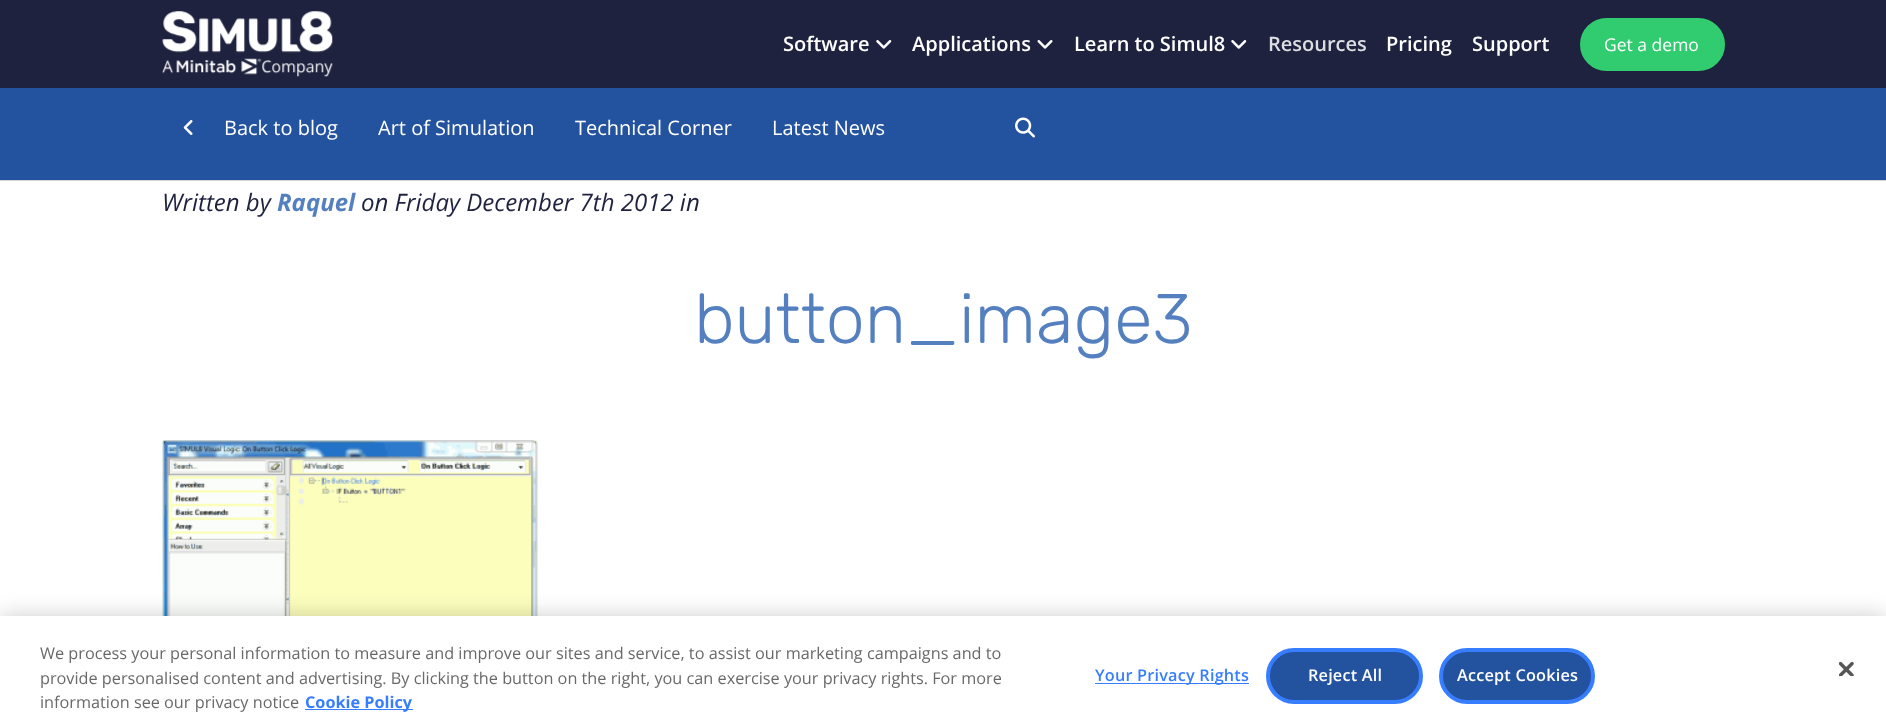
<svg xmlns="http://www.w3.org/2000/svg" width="1886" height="727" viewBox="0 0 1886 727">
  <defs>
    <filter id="blur1" x="-50%" y="-200%" width="200%" height="500%"><feGaussianBlur stdDeviation="11"/></filter>
  </defs>
  <rect width="100%" height="100%" fill="#ffffff"/>
  <rect x="0" y="0" width="1886" height="88" fill="#1e223e"/>
  <image x="162" y="11" width="171" height="66" href="img1.png"/>
  <text x="783" y="51" font-family="Open Sans" font-size="20" font-weight="600" fill="#ffffff">Software</text>
  <image x="876" y="40" width="16" height="9" href="img2.png"/>
  <text x="912" y="51" font-family="Open Sans" font-size="20" font-weight="600" fill="#ffffff">Applications</text>
  <image x="1037" y="40" width="16" height="9" href="img3.png"/>
  <text x="1074" y="51" font-family="Open Sans" font-size="20" font-weight="600" fill="#ffffff">Learn to Simul8</text>
  <image x="1231" y="40" width="16" height="9" href="img2.png"/>
  <text x="1268" y="51" font-family="Open Sans" font-size="20" font-weight="600" fill="#dddee2">Resources</text>
  <text x="1386" y="51" font-family="Open Sans" font-size="20" font-weight="600" fill="#ffffff">Pricing</text>
  <text x="1472" y="51" font-family="Open Sans" font-size="20" font-weight="600" fill="#ffffff">Support</text>
  <rect x="1581.5" y="19.5" width="142" height="50" rx="25" fill="#32cc70" stroke="#32cc70" stroke-width="3"/>
  <text x="1604" y="51" font-family="Open Sans" font-size="17.5" fill="#ffffff">Get a demo</text>
  <rect x="0" y="88" width="1886" height="92" fill="#23529e"/>
  <rect x="0" y="180" width="1886" height="1" fill="#d4d4d4"/>
  <image x="183" y="120" width="10" height="15" href="img4.png"/>
  <text x="224" y="135" font-family="Open Sans" font-size="20" fill="#ffffff">Back to blog</text>
  <text x="378" y="135" font-family="Open Sans" font-size="20" fill="#ffffff">Art of Simulation</text>
  <text x="575" y="135" font-family="Open Sans" font-size="20" fill="#ffffff">Technical Corner</text>
  <text x="772" y="135" font-family="Open Sans" font-size="20" fill="#ffffff">Latest News</text>
  <image x="1015" y="117" width="20" height="21" href="img5.png"/>
  <text x="162" y="211" font-family="Open Sans" font-size="24" font-style="italic" fill="#1e223e">Written by</text>
  <text x="277" y="211" font-family="Open Sans" font-size="24" font-weight="bold" font-style="italic" fill="#5580c0">Raquel</text>
  <text x="361" y="211" font-family="Open Sans" font-size="24" font-style="italic" fill="#1e223e">on Friday December 7th 2012 in</text>
  <text x="694" y="343" font-family="Rubik" font-size="70" font-weight="300" fill="#5580c0">button_image3</text>
  <image x="162" y="440" width="376" height="176" href="img6.png"/>
  <rect x="0" y="616" width="1886" height="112" fill="#000000" fill-opacity="0.2" filter="url(#blur1)"/>
  <rect x="0" y="616" width="1886" height="111" fill="#ffffff"/>
  <text x="40" y="659" font-family="Open Sans" font-size="16.25" fill="#696969">We process your personal information to measure and improve our sites and service, to assist our marketing campaigns and to</text>
  <text x="40" y="684" font-family="Open Sans" font-size="16.25" fill="#696969">provide personalised content and advertising. By clicking the button on the right, you can exercise your privacy rights. For more</text>
  <text x="40" y="708" font-family="Open Sans" font-size="16.25" fill="#696969">information see our privacy notice</text>
  <rect x="305" y="709" width="108" height="1" fill="#377dff"/>
  <text x="305" y="708" font-family="Open Sans" font-size="16.25" font-weight="bold" fill="#377dff">Cookie Policy</text>
  <rect x="1095" y="683" width="154" height="1" fill="#377dff"/>
  <text x="1095" y="681" font-family="Open Sans" font-size="16.25" font-weight="600" letter-spacing="0.2" fill="#377dff">Your Privacy Rights</text>
  <rect x="1268" y="650" width="153" height="52" rx="26" fill="#23529e" stroke="#377dff" stroke-width="4"/>
  <text x="1308" y="681" font-family="Open Sans" font-size="16.25" font-weight="600" letter-spacing="0.2" fill="#ffffff">Reject All</text>
  <rect x="1441" y="650" width="152" height="52" rx="26" fill="#23529e" stroke="#377dff" stroke-width="4"/>
  <text x="1457" y="681" font-family="Open Sans" font-size="16.25" font-weight="600" letter-spacing="0.2" fill="#ffffff">Accept Cookies</text>
  <image x="1839" y="661" width="15" height="15" href="img7.png"/>
</svg>
